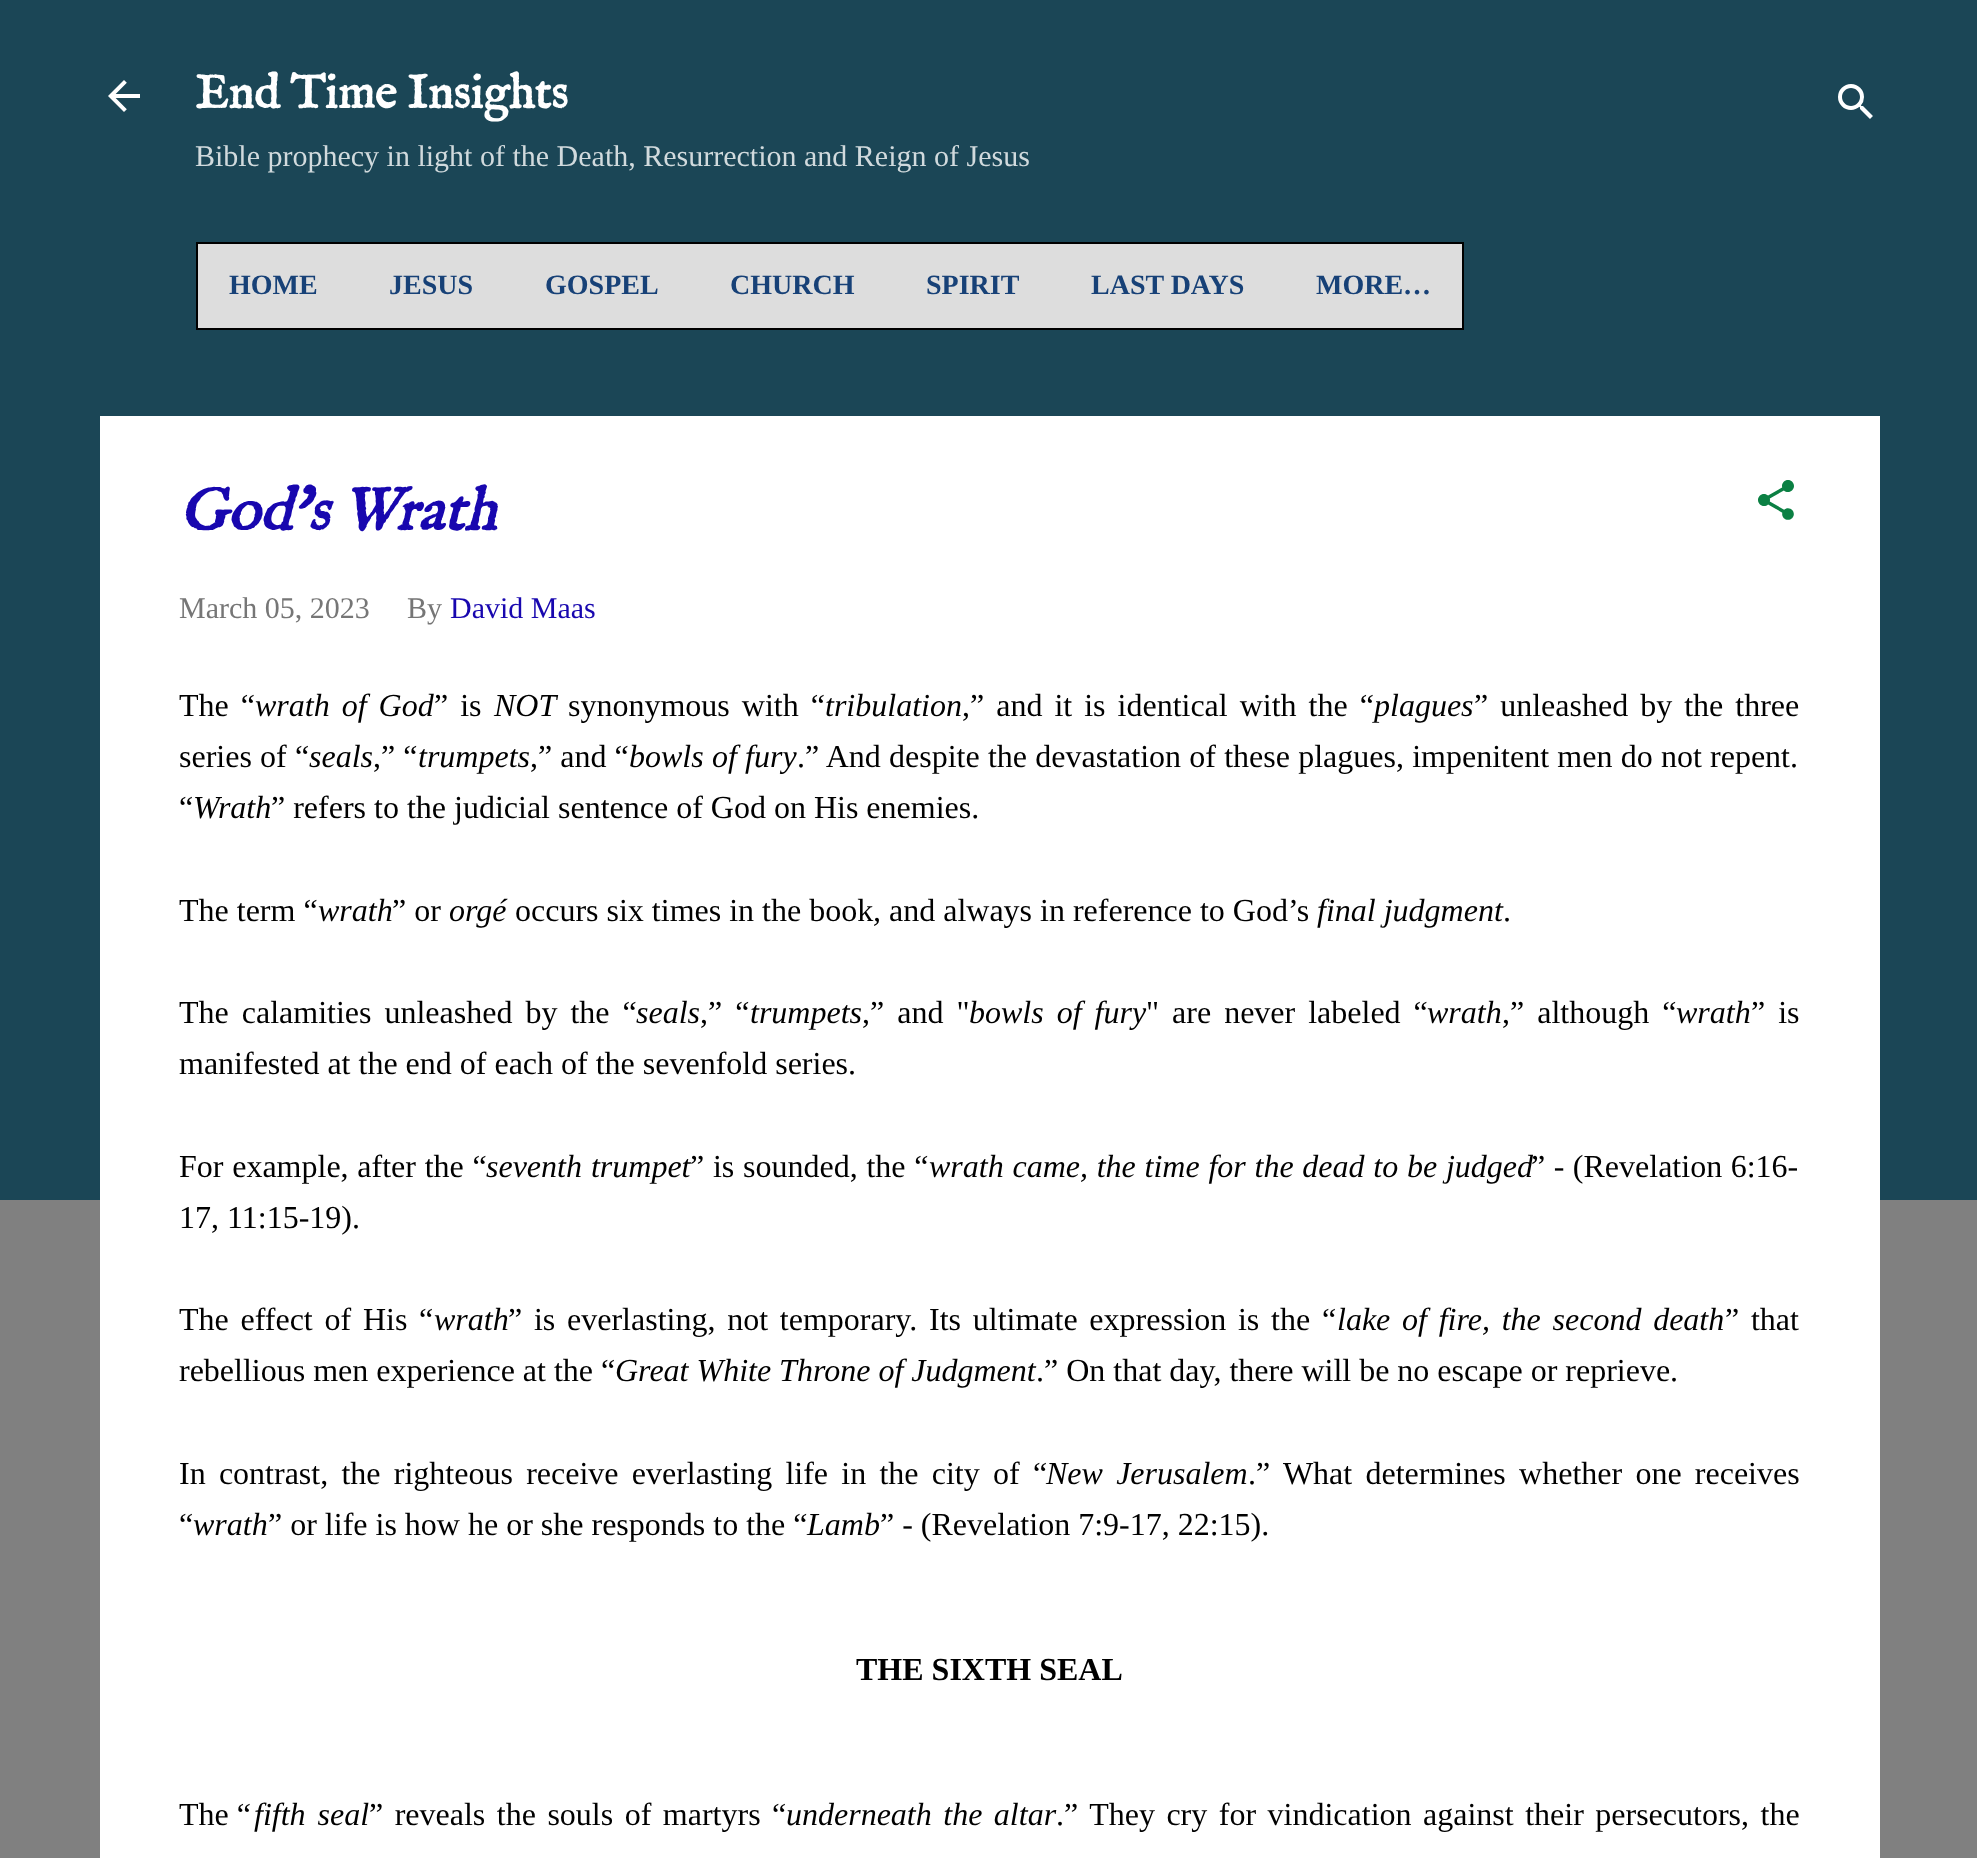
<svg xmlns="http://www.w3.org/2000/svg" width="1977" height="1858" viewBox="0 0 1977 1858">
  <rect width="100%" height="100%" fill="#808080"/>
  <rect x="0" y="0" width="1977" height="1200" fill="#1b4656"/>
  <image x="108" y="80" width="32" height="32" href="img1.png"/>
  <text x="195" y="108" font-family="IM FELL English" font-size="48" font-weight="bold" fill="#ffffff">End Time Insights</text>
  <text x="195" y="166" font-family="Liberation Serif" font-size="30" fill="#d1dadd">Bible prophecy in light of the Death, Resurrection and Reign of Jesus</text>
  <rect x="197" y="243" width="1266" height="86" fill="#dddddd" stroke="#000000" stroke-width="2"/>
  <text x="229" y="294" font-family="Liberation Serif" font-size="28" font-weight="bold" fill="#174177">HOME</text>
  <text x="389" y="294" font-family="Liberation Serif" font-size="28" font-weight="bold" fill="#174177">JESUS</text>
  <text x="545" y="294" font-family="Liberation Serif" font-size="28" font-weight="bold" fill="#174177">GOSPEL</text>
  <text x="730" y="294" font-family="Liberation Serif" font-size="28" font-weight="bold" fill="#174177">CHURCH</text>
  <text x="926" y="294" font-family="Liberation Serif" font-size="28" font-weight="bold" fill="#174177">SPIRIT</text>
  <text x="1091" y="294" font-family="Liberation Serif" font-size="28" font-weight="bold" fill="#174177">LAST DAYS</text>
  <text x="1316" y="294" font-family="Liberation Serif" font-size="28" font-weight="bold" fill="#174177">MORE…</text>
  <image x="1838" y="84" width="35" height="35" href="img2.png"/>
  <rect x="100" y="416" width="1780" height="1442" fill="#ffffff"/>
  <text x="179" y="530" font-family="IM FELL English" font-size="60" font-weight="bold" font-style="italic" fill="#1807af">God's Wrath</text>
  <image x="1758" y="480" width="36" height="40" href="img3.png"/>
  <text x="179" y="618" font-family="Liberation Serif" font-size="30" fill="#767676">March 05, 2023</text>
  <text x="407" y="618" font-family="Liberation Serif" font-size="30" fill="#767676">By</text>
  <text x="450" y="618" font-family="Liberation Serif" font-size="30" fill="#1807af">David Maas</text>
  <text x="179" y="716" word-spacing="4" font-family="Liberation Serif" font-size="32" fill="#000000">The “</text>
  <text x="255" y="716" word-spacing="4" font-family="Liberation Serif" font-size="32" font-style="italic" fill="#000000">wrath of God</text>
  <text x="434" y="716" word-spacing="4" font-family="Liberation Serif" font-size="32" fill="#000000">” is</text>
  <text x="494" y="716" font-family="Liberation Serif" font-size="32" font-style="italic" fill="#000000">NOT</text>
  <text x="568" y="716" word-spacing="4" font-family="Liberation Serif" font-size="32" fill="#000000">synonymous with “</text>
  <text x="825" y="716" font-family="Liberation Serif" font-size="32" font-style="italic" fill="#000000">tribulation</text>
  <text x="962" y="716" word-spacing="4" font-family="Liberation Serif" font-size="32" fill="#000000">,” and it is identical with the “</text>
  <text x="1374" y="716" font-family="Liberation Serif" font-size="32" font-style="italic" fill="#000000">plagues</text>
  <text x="1474" y="716" word-spacing="4" font-family="Liberation Serif" font-size="32" fill="#000000">” unleashed by the three</text>
  <text x="179" y="767" word-spacing="0.25" font-family="Liberation Serif" font-size="32" fill="#000000">series of “</text>
  <text x="309" y="767" font-family="Liberation Serif" font-size="32" font-style="italic" fill="#000000">seals</text>
  <text x="373" y="767" font-family="Liberation Serif" font-size="32" fill="#000000">,” “</text>
  <text x="418" y="767" font-family="Liberation Serif" font-size="32" font-style="italic" fill="#000000">trumpets</text>
  <text x="530" y="767" font-family="Liberation Serif" font-size="32" fill="#000000">,” and “</text>
  <text x="629" y="767" word-spacing="0.25" font-family="Liberation Serif" font-size="32" font-style="italic" fill="#000000">bowls of fury</text>
  <text x="797" y="767" word-spacing="0.25" font-family="Liberation Serif" font-size="32" fill="#000000">.” And despite the devastation of these plagues, impenitent men do not repent.</text>
  <text x="179" y="818" font-family="Liberation Serif" font-size="32" fill="#000000">“</text>
  <text x="193" y="818" font-family="Liberation Serif" font-size="32" font-style="italic" fill="#000000">Wrath</text>
  <text x="271" y="818" font-family="Liberation Serif" font-size="32" fill="#000000">” refers to the judicial sentence of God on His enemies.</text>
  <text x="179" y="921" font-family="Liberation Serif" font-size="32" fill="#000000">The term “</text>
  <text x="318" y="921" font-family="Liberation Serif" font-size="32" font-style="italic" fill="#000000">wrath</text>
  <text x="392" y="921" font-family="Liberation Serif" font-size="32" fill="#000000">” or</text>
  <text x="449" y="921" font-family="Liberation Serif" font-size="32" font-style="italic" fill="#000000">orgé</text>
  <text x="515" y="921" font-family="Liberation Serif" font-size="32" fill="#000000">occurs six times in the book</text>
  <text x="873" y="921" font-family="Liberation Serif" font-size="32" font-style="italic" fill="#000000">,</text>
  <text x="889" y="921" font-family="Liberation Serif" font-size="32" fill="#000000">and always in reference to God’s</text>
  <text x="1317" y="921" font-family="Liberation Serif" font-size="32" font-style="italic" fill="#000000">final judgment</text>
  <text x="1503" y="921" font-family="Liberation Serif" font-size="32" fill="#000000">.</text>
  <text x="179" y="1023" word-spacing="5" font-family="Liberation Serif" font-size="32" fill="#000000">The calamities unleashed by the “</text>
  <text x="636" y="1023" font-family="Liberation Serif" font-size="32" font-style="italic" fill="#000000">seals</text>
  <text x="700" y="1023" word-spacing="5" font-family="Liberation Serif" font-size="32" fill="#000000">,” “</text>
  <text x="750" y="1023" font-family="Liberation Serif" font-size="32" font-style="italic" fill="#000000">trumpets</text>
  <text x="862" y="1023" word-spacing="5" font-family="Liberation Serif" font-size="32" fill="#000000">,” and "</text>
  <text x="969" y="1023" word-spacing="5" font-family="Liberation Serif" font-size="32" font-style="italic" fill="#000000">bowls of fury</text>
  <text x="1146" y="1023" word-spacing="5" font-family="Liberation Serif" font-size="32" fill="#000000">" are never labeled “</text>
  <text x="1427" y="1023" font-family="Liberation Serif" font-size="32" font-style="italic" fill="#000000">wrath</text>
  <text x="1502" y="1023" word-spacing="5" font-family="Liberation Serif" font-size="32" fill="#000000">,” although “</text>
  <text x="1676" y="1023" font-family="Liberation Serif" font-size="32" font-style="italic" fill="#000000">wrath</text>
  <text x="1751" y="1023" word-spacing="5" font-family="Liberation Serif" font-size="32" fill="#000000">” is</text>
  <text x="179" y="1074" font-family="Liberation Serif" font-size="32" fill="#000000">manifested at the end of each of the sevenfold series.</text>
  <text x="179" y="1177" word-spacing="0.75" font-family="Liberation Serif" font-size="32" fill="#000000">For example, after the “</text>
  <text x="486" y="1177" word-spacing="1" font-family="Liberation Serif" font-size="32" font-style="italic" fill="#000000">seventh trumpet</text>
  <text x="690" y="1177" word-spacing="0.75" font-family="Liberation Serif" font-size="32" fill="#000000">” is sounded, the “</text>
  <text x="929" y="1177" word-spacing="0.75" font-family="Liberation Serif" font-size="32" font-style="italic" fill="#000000">wrath came, the time for the dead to be judged</text>
  <text x="1531" y="1177" word-spacing="0.5" font-family="Liberation Serif" font-size="32" fill="#000000">” - (Revelation 6:16-</text>
  <text x="179" y="1228" font-family="Liberation Serif" font-size="32" fill="#000000">17, 11:15-19).</text>
  <text x="179" y="1330" word-spacing="3.75" font-family="Liberation Serif" font-size="32" fill="#000000">The effect of His “</text>
  <text x="434" y="1330" font-family="Liberation Serif" font-size="32" font-style="italic" fill="#000000">wrath</text>
  <text x="508" y="1330" word-spacing="3.75" font-family="Liberation Serif" font-size="32" fill="#000000">” is everlasting, not temporary. Its ultimate expression is the “</text>
  <text x="1337" y="1330" word-spacing="3.75" font-family="Liberation Serif" font-size="32" font-style="italic" fill="#000000">lake of fire, the second death</text>
  <text x="1725" y="1330" word-spacing="3.75" font-family="Liberation Serif" font-size="32" fill="#000000">” that</text>
  <text x="179" y="1381" font-family="Liberation Serif" font-size="32" fill="#000000">rebellious men experience at the “</text>
  <text x="615" y="1381" font-family="Liberation Serif" font-size="32" font-style="italic" fill="#000000">Great White Throne of Judgment</text>
  <text x="1036" y="1381" font-family="Liberation Serif" font-size="32" fill="#000000">.” On that day, there will be no escape or reprieve.</text>
  <text x="179" y="1484" word-spacing="5.25" font-family="Liberation Serif" font-size="32" fill="#000000">In contrast, the righteous receive everlasting life in the city of “</text>
  <text x="1046" y="1484" word-spacing="5.25" font-family="Liberation Serif" font-size="32" font-style="italic" fill="#000000">New Jerusalem</text>
  <text x="1248" y="1484" word-spacing="5.25" font-family="Liberation Serif" font-size="32" fill="#000000">.” What determines whether one receives</text>
  <text x="179" y="1535" font-family="Liberation Serif" font-size="32" fill="#000000">“</text>
  <text x="193" y="1535" font-family="Liberation Serif" font-size="32" font-style="italic" fill="#000000">wrath</text>
  <text x="268" y="1535" font-family="Liberation Serif" font-size="32" fill="#000000">” or life is how he or she responds to the “</text>
  <text x="807" y="1535" font-family="Liberation Serif" font-size="32" font-style="italic" fill="#000000">Lamb</text>
  <text x="880" y="1535" font-family="Liberation Serif" font-size="32" fill="#000000">” - (Revelation 7:9-17, 22:15).</text>
  <text x="856" y="1680" font-family="Liberation Serif" font-size="32" font-weight="bold" fill="#000000">THE SIXTH SEAL</text>
  <text x="179" y="1825" font-family="Liberation Serif" font-size="32" fill="#000000">The “</text>
  <text x="254" y="1825" word-spacing="4" font-family="Liberation Serif" font-size="32" font-style="italic" fill="#000000">fifth seal</text>
  <text x="369" y="1825" word-spacing="3.5" font-family="Liberation Serif" font-size="32" fill="#000000">” reveals the souls of martyrs “</text>
  <text x="786" y="1825" word-spacing="3.5" font-family="Liberation Serif" font-size="32" font-style="italic" fill="#000000">underneath the altar</text>
  <text x="1056" y="1825" word-spacing="3.5" font-family="Liberation Serif" font-size="32" fill="#000000">.” They cry for vindication against their persecutors, the</text>
</svg>
